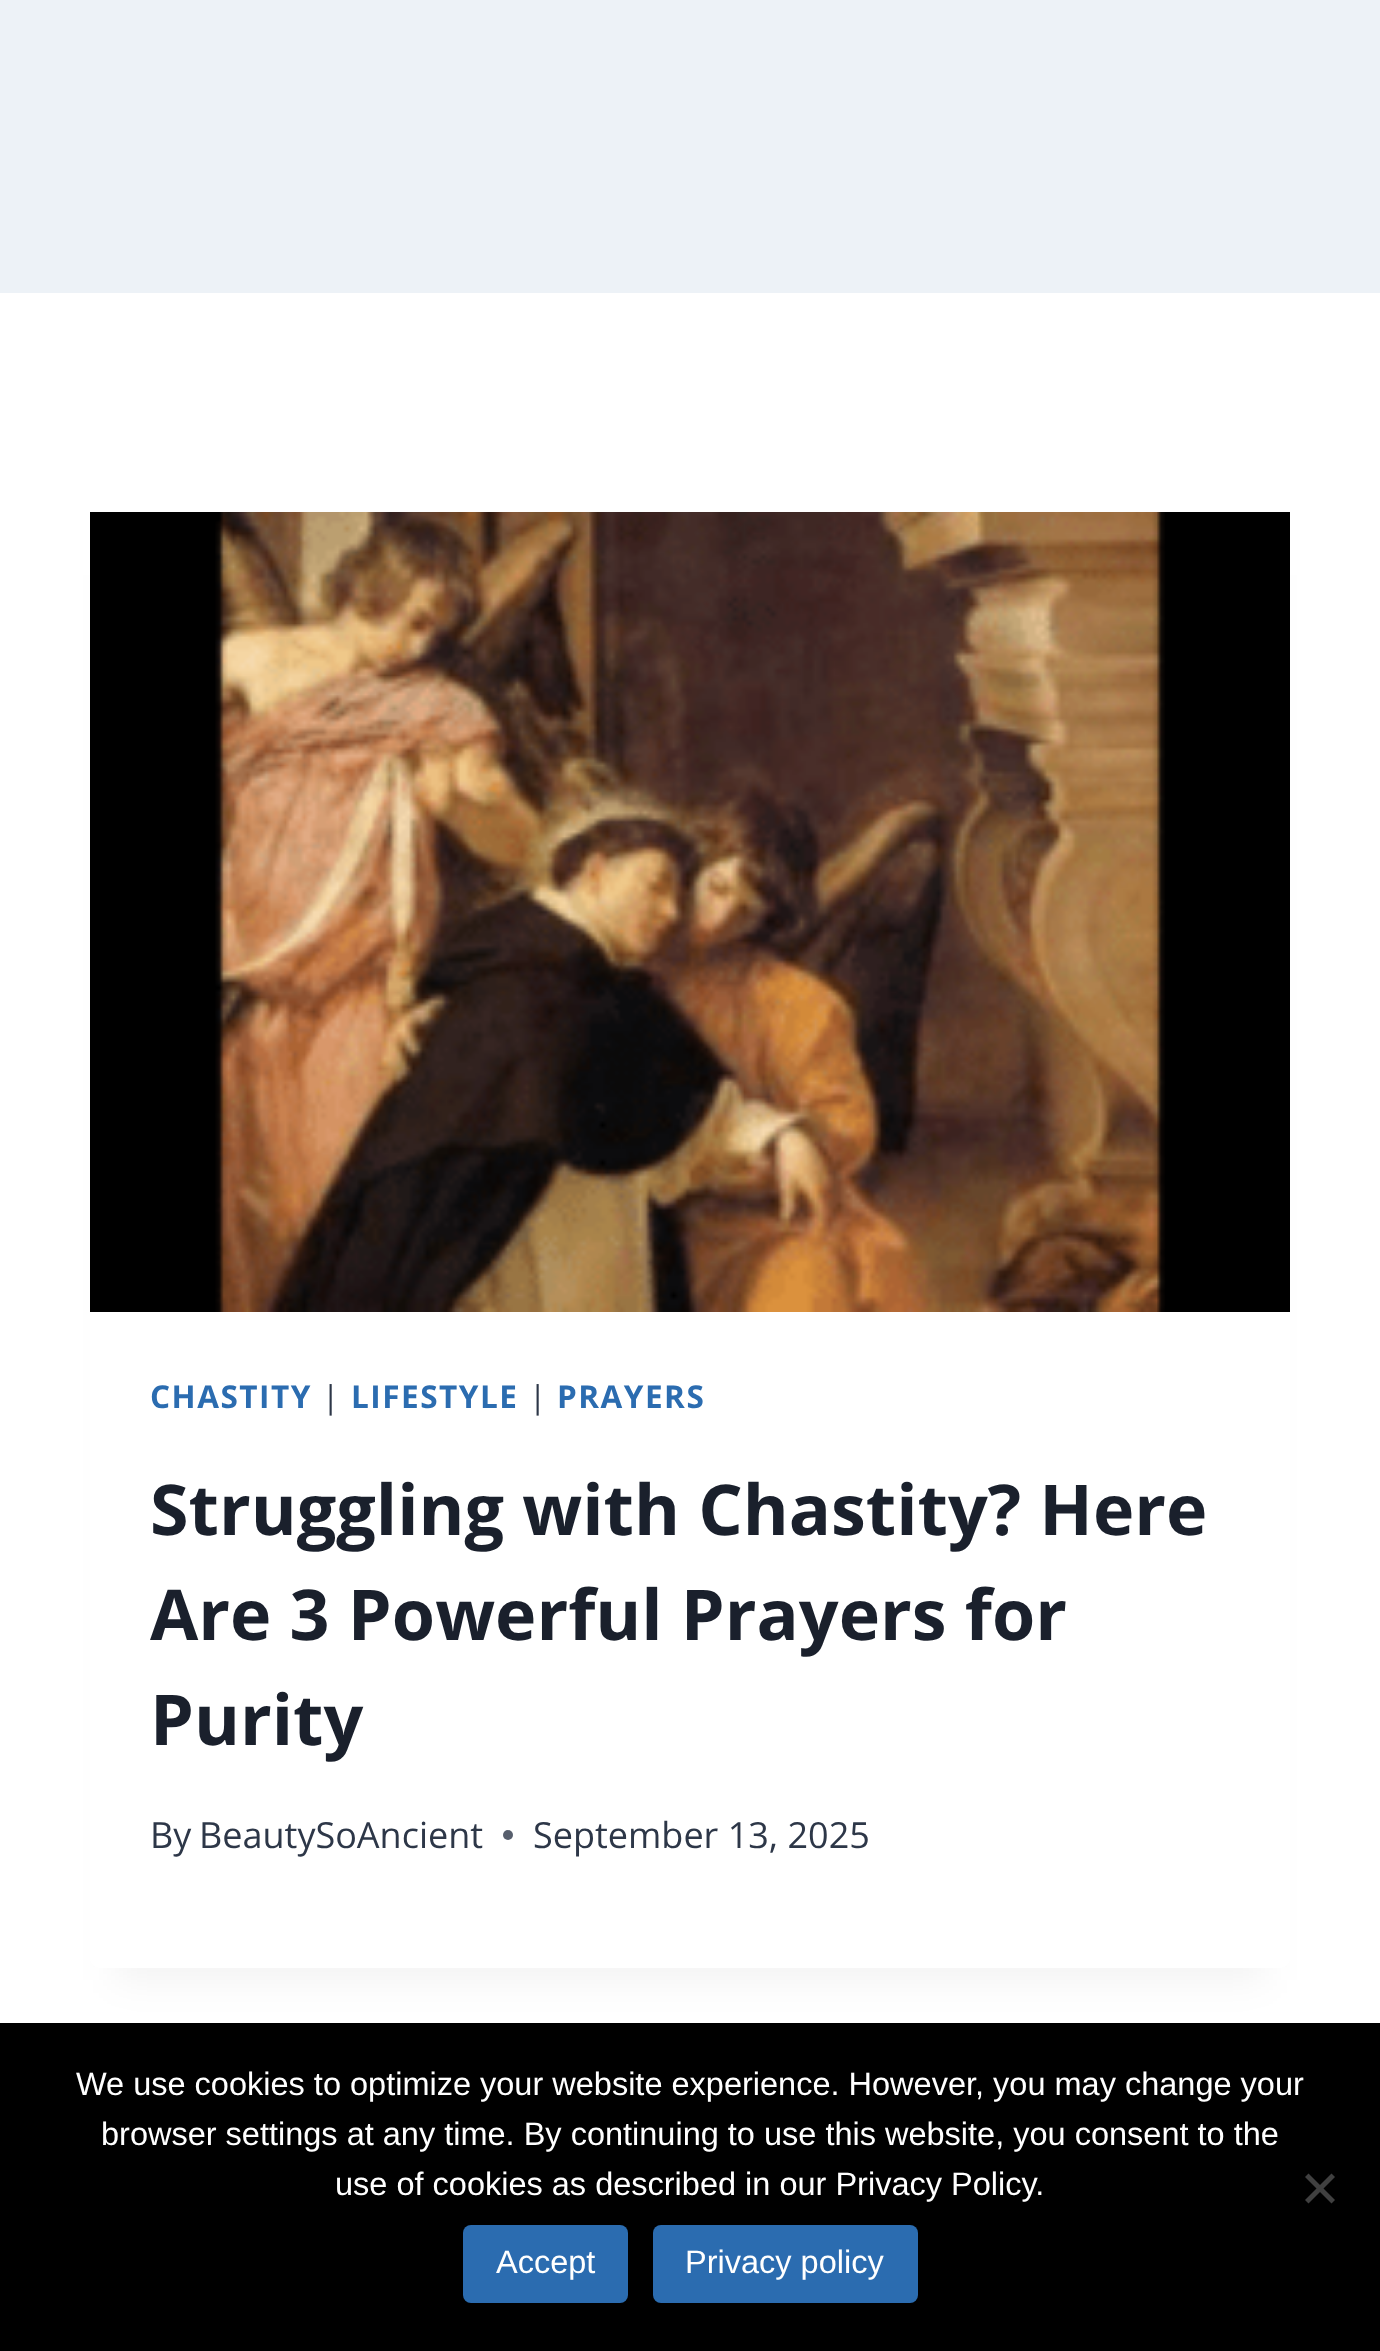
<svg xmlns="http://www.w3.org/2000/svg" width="1380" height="2351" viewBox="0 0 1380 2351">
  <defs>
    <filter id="blur1" x="-50%" y="-200%" width="200%" height="500%"><feGaussianBlur stdDeviation="19"/></filter>
  </defs>
  <rect width="100%" height="100%" fill="#ffffff"/>
  <rect x="0" y="0" width="1380" height="293" fill="#edf2f7"/>
  <rect x="115" y="575" width="1150" height="1405" fill="#000000" fill-opacity="0.05" filter="url(#blur1)"/>
  <rect x="90" y="513" width="1200" height="1455" rx="10" fill="#ffffff"/>
  <image x="90" y="512" width="1200" height="800" href="img1.png"/>
  <text x="150" y="1408" font-family="Open Sans" font-size="31.5" font-weight="bold" letter-spacing="1.5" fill="#2b6cb0">CHASTITY</text>
  <text x="322" y="1408" font-family="Open Sans" font-size="31.5" letter-spacing="1.5" fill="#2d3748">|</text>
  <text x="351" y="1408" font-family="Open Sans" font-size="31.5" font-weight="bold" letter-spacing="1.5" fill="#2b6cb0">LIFESTYLE</text>
  <text x="529" y="1408" font-family="Open Sans" font-size="31.5" letter-spacing="1.5" fill="#2d3748">|</text>
  <text x="557" y="1408" font-family="Open Sans" font-size="31.5" font-weight="bold" letter-spacing="1.5" fill="#2b6cb0">PRAYERS</text>
  <text x="150" y="1535" font-family="Open Sans" font-size="70" font-weight="bold" fill="#1a202c">Struggling with Chastity? Here</text>
  <text x="150" y="1640" font-family="Open Sans" font-size="70" font-weight="bold" fill="#1a202c">Are 3 Powerful Prayers for</text>
  <text x="150" y="1745" font-family="Open Sans" font-size="70" font-weight="bold" fill="#1a202c">Purity</text>
  <text x="150" y="1848" font-family="Open Sans" font-size="36" fill="#2d3748">By</text>
  <text x="199" y="1848" font-family="Open Sans" font-size="36" fill="#2d3748">BeautySoAncient</text>
  <circle cx="508" cy="1835" r="5" fill="#575f6d"/>
  <text x="533" y="1848" font-family="Open Sans" font-size="36" fill="#2d3748">September 13, 2025</text>
  <rect x="0" y="2023" width="1380" height="328" fill="#000000"/>
  <text x="76" y="2095" font-family="Liberation Sans" font-size="32.5" fill="#ffffff">We use cookies to optimize your website experience. However, you may change your</text>
  <text x="101" y="2145" font-family="Liberation Sans" font-size="32.5" fill="#ffffff">browser settings at any time. By continuing to use this website, you consent to the</text>
  <text x="335" y="2195" font-family="Liberation Sans" font-size="32.5" fill="#ffffff">use of cookies as described in our Privacy Policy.</text>
  <path d="M1331.5 2173.5L1335 2177L1308.5 2203.5L1305 2200Z" fill="#404040"/>
  <path d="M1305 2177L1308.5 2173.5L1335 2200L1331.5 2203.5Z" fill="#404040"/>
  <rect x="463" y="2225" width="165" height="78" rx="8" fill="#2b6cb0"/>
  <text x="496" y="2273" font-family="Liberation Sans" font-size="32.5" fill="#ffffff">Accept</text>
  <rect x="653" y="2225" width="265" height="78" rx="8" fill="#2b6cb0"/>
  <text x="685" y="2273" font-family="Liberation Sans" font-size="32.5" fill="#ffffff">Privacy policy</text>
</svg>
